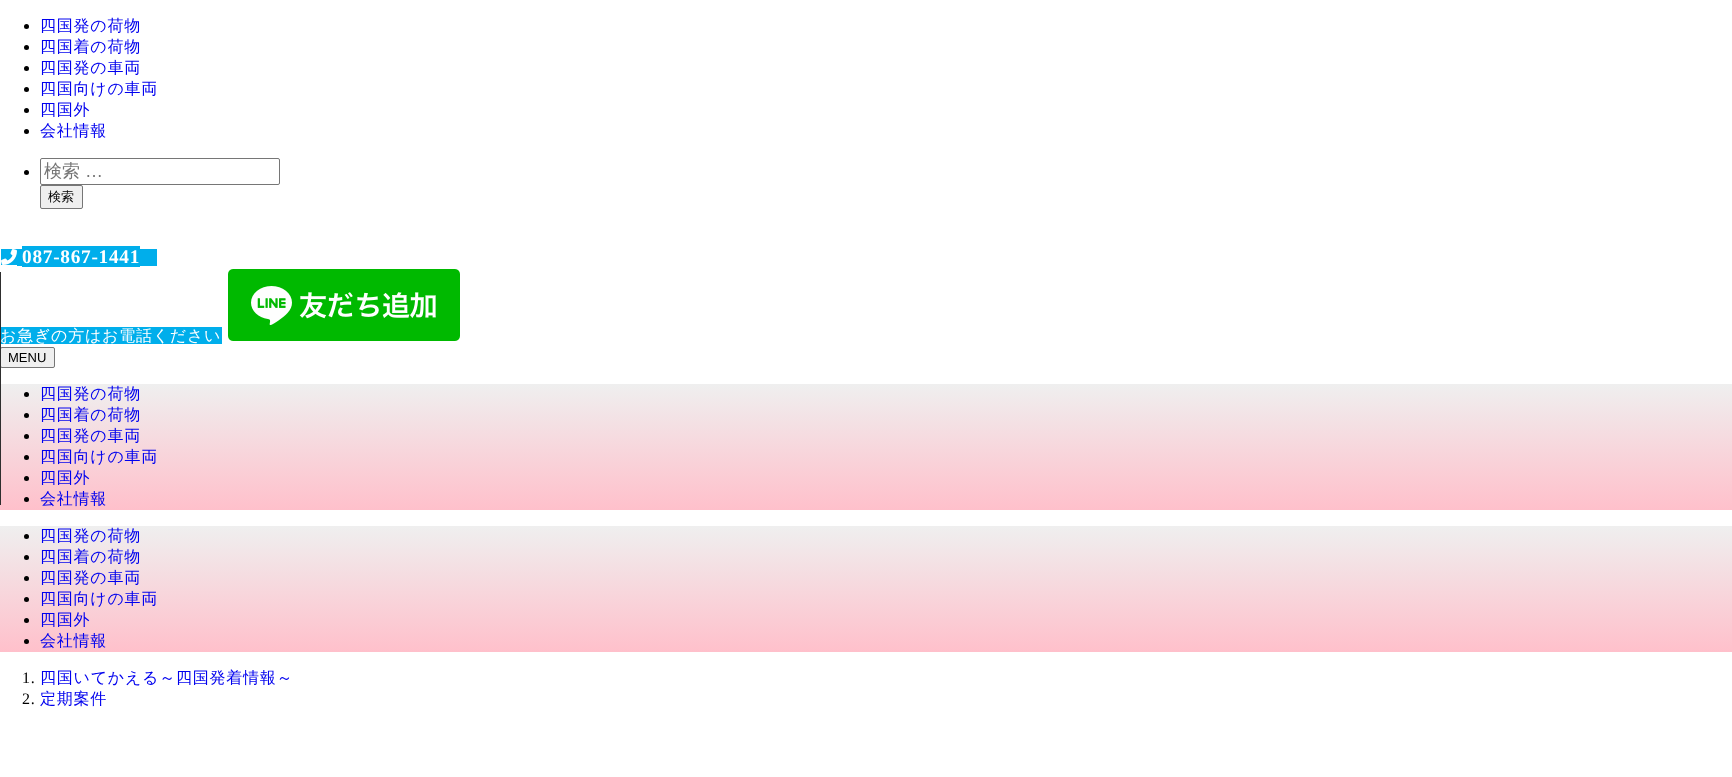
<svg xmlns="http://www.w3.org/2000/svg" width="1732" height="777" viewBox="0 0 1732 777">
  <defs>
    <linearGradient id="g1" gradientUnits="userSpaceOnUse" x1="866" y1="384" x2="866" y2="510"><stop offset="0" stop-color="#efefef"/><stop offset="1" stop-color="#ffc0cb"/></linearGradient>
    <linearGradient id="g2" gradientUnits="userSpaceOnUse" x1="866" y1="526" x2="866" y2="652"><stop offset="0" stop-color="#efefef"/><stop offset="1" stop-color="#ffc0cb"/></linearGradient>
  </defs>
  <rect width="100%" height="100%" fill="#ffffff"/>
  <circle cx="26.5" cy="26.5" r="2.5" fill="#000000"/>
  <text x="40" y="31" font-family="WenQuanYi Zen Hei" font-size="16" font-weight="500" letter-spacing="0.75" fill="#0000ee">四国発の荷物</text>
  <circle cx="26.5" cy="47.5" r="2.5" fill="#000000"/>
  <text x="40" y="52" font-family="WenQuanYi Zen Hei" font-size="16" font-weight="500" letter-spacing="0.75" fill="#0000ee">四国着の荷物</text>
  <circle cx="26.5" cy="68.5" r="2.5" fill="#000000"/>
  <text x="40" y="73" font-family="WenQuanYi Zen Hei" font-size="16" font-weight="500" letter-spacing="0.75" fill="#0000ee">四国発の車両</text>
  <circle cx="26.5" cy="89.5" r="2.5" fill="#000000"/>
  <text x="40" y="94" font-family="WenQuanYi Zen Hei" font-size="16" font-weight="500" letter-spacing="0.75" fill="#0000ee">四国向けの車両</text>
  <circle cx="26.5" cy="110.5" r="2.5" fill="#000000"/>
  <text x="40" y="115" font-family="WenQuanYi Zen Hei" font-size="16" font-weight="500" letter-spacing="0.75" fill="#0000ee">四国外</text>
  <circle cx="26.5" cy="131.5" r="2.5" fill="#000000"/>
  <text x="40" y="136" font-family="WenQuanYi Zen Hei" font-size="16" font-weight="500" letter-spacing="0.75" fill="#0000ee">会社情報</text>
  <circle cx="26.5" cy="172.5" r="2.5" fill="#000000"/>
  <rect x="40.5" y="158.5" width="239" height="26" rx="1.5" fill="none" stroke="#767676"/>
  <text x="44" y="177" font-family="WenQuanYi Zen Hei" font-size="18" font-weight="500" fill="#757575">検索</text>
  <text x="85" y="177" font-family="Liberation Sans" font-size="18" fill="#757575">…</text>
  <rect x="40.5" y="185.5" width="42" height="23" rx="1.5" fill="#efefef" stroke="#767676"/>
  <text x="48" y="201" font-family="WenQuanYi Zen Hei" font-size="13" font-weight="500" fill="#000000">検索</text>
  <rect x="1" y="249" width="16" height="16" fill="#00aeeb"/>
  <rect x="17" y="248" width="5" height="19" fill="#00aeeb"/>
  <rect x="17" y="248" width="5" height="1" fill="#ffffff"/>
  <rect x="17" y="266" width="5" height="1" fill="#ffffff"/>
  <rect x="22" y="246" width="118" height="21" fill="#00aeeb"/>
  <rect x="140" y="249" width="17" height="17" fill="#00aeeb"/>
  <rect x="1" y="327" width="221" height="17" fill="#00aeeb"/>
  <image x="1" y="249" width="16" height="16" href="img1.png"/>
  <text x="22" y="263" font-family="Liberation Serif" font-size="19.25" font-weight="bold" letter-spacing="0.75" fill="#ffffff">087-867-1441</text>
  <text x="0" y="341" font-family="WenQuanYi Zen Hei" font-size="16" font-weight="500" letter-spacing="0.75" fill="#ffffff">お急ぎの方はお電話ください</text>
  <image x="228" y="269" width="232" height="72" href="img2.png"/>
  <rect x="0.5" y="347.5" width="54" height="20" rx="1.5" fill="#efefef" stroke="#767676"/>
  <text x="8" y="362" font-family="Liberation Sans" font-size="13" fill="#000000">MENU</text>
  <rect x="0" y="384" width="1732" height="126" fill="url(#g1)"/>
  <circle cx="26.5" cy="394.5" r="2.5" fill="#000000"/>
  <text x="40" y="399" font-family="WenQuanYi Zen Hei" font-size="16" font-weight="500" letter-spacing="0.75" fill="#0000ee">四国発の荷物</text>
  <rect x="0" y="272" width="1" height="233" fill="#2e2e2e"/>
  <circle cx="26.5" cy="415.5" r="2.5" fill="#000000"/>
  <text x="40" y="420" font-family="WenQuanYi Zen Hei" font-size="16" font-weight="500" letter-spacing="0.75" fill="#0000ee">四国着の荷物</text>
  <circle cx="26.5" cy="436.5" r="2.5" fill="#000000"/>
  <text x="40" y="441" font-family="WenQuanYi Zen Hei" font-size="16" font-weight="500" letter-spacing="0.75" fill="#0000ee">四国発の車両</text>
  <circle cx="26.5" cy="457.5" r="2.5" fill="#000000"/>
  <text x="40" y="462" font-family="WenQuanYi Zen Hei" font-size="16" font-weight="500" letter-spacing="0.75" fill="#0000ee">四国向けの車両</text>
  <circle cx="26.5" cy="478.5" r="2.5" fill="#000000"/>
  <text x="40" y="483" font-family="WenQuanYi Zen Hei" font-size="16" font-weight="500" letter-spacing="0.75" fill="#0000ee">四国外</text>
  <circle cx="26.5" cy="499.5" r="2.5" fill="#000000"/>
  <text x="40" y="504" font-family="WenQuanYi Zen Hei" font-size="16" font-weight="500" letter-spacing="0.75" fill="#0000ee">会社情報</text>
  <rect x="0" y="526" width="1732" height="126" fill="url(#g2)"/>
  <circle cx="26.5" cy="536.5" r="2.5" fill="#000000"/>
  <text x="40" y="541" font-family="WenQuanYi Zen Hei" font-size="16" font-weight="500" letter-spacing="0.75" fill="#0000ee">四国発の荷物</text>
  <circle cx="26.5" cy="557.5" r="2.5" fill="#000000"/>
  <text x="40" y="562" font-family="WenQuanYi Zen Hei" font-size="16" font-weight="500" letter-spacing="0.75" fill="#0000ee">四国着の荷物</text>
  <circle cx="26.5" cy="578.5" r="2.5" fill="#000000"/>
  <text x="40" y="583" font-family="WenQuanYi Zen Hei" font-size="16" font-weight="500" letter-spacing="0.75" fill="#0000ee">四国発の車両</text>
  <circle cx="26.5" cy="599.5" r="2.5" fill="#000000"/>
  <text x="40" y="604" font-family="WenQuanYi Zen Hei" font-size="16" font-weight="500" letter-spacing="0.75" fill="#0000ee">四国向けの車両</text>
  <circle cx="26.5" cy="620.5" r="2.5" fill="#000000"/>
  <text x="40" y="625" font-family="WenQuanYi Zen Hei" font-size="16" font-weight="500" letter-spacing="0.75" fill="#0000ee">四国外</text>
  <circle cx="26.5" cy="641.5" r="2.5" fill="#000000"/>
  <text x="40" y="646" font-family="WenQuanYi Zen Hei" font-size="16" font-weight="500" letter-spacing="0.75" fill="#0000ee">会社情報</text>
  <text x="22" y="683" font-family="Liberation Serif" font-size="16" letter-spacing="0.75" fill="#000000">1.</text>
  <text x="40" y="683" font-family="WenQuanYi Zen Hei" font-size="16" font-weight="500" letter-spacing="0.75" fill="#0000ee">四国いてかえる～四国発着情報～</text>
  <text x="22" y="704" font-family="Liberation Serif" font-size="16" letter-spacing="0.75" fill="#000000">2.</text>
  <text x="40" y="704" font-family="WenQuanYi Zen Hei" font-size="16" font-weight="500" letter-spacing="0.75" fill="#0000ee">定期案件</text>
</svg>
